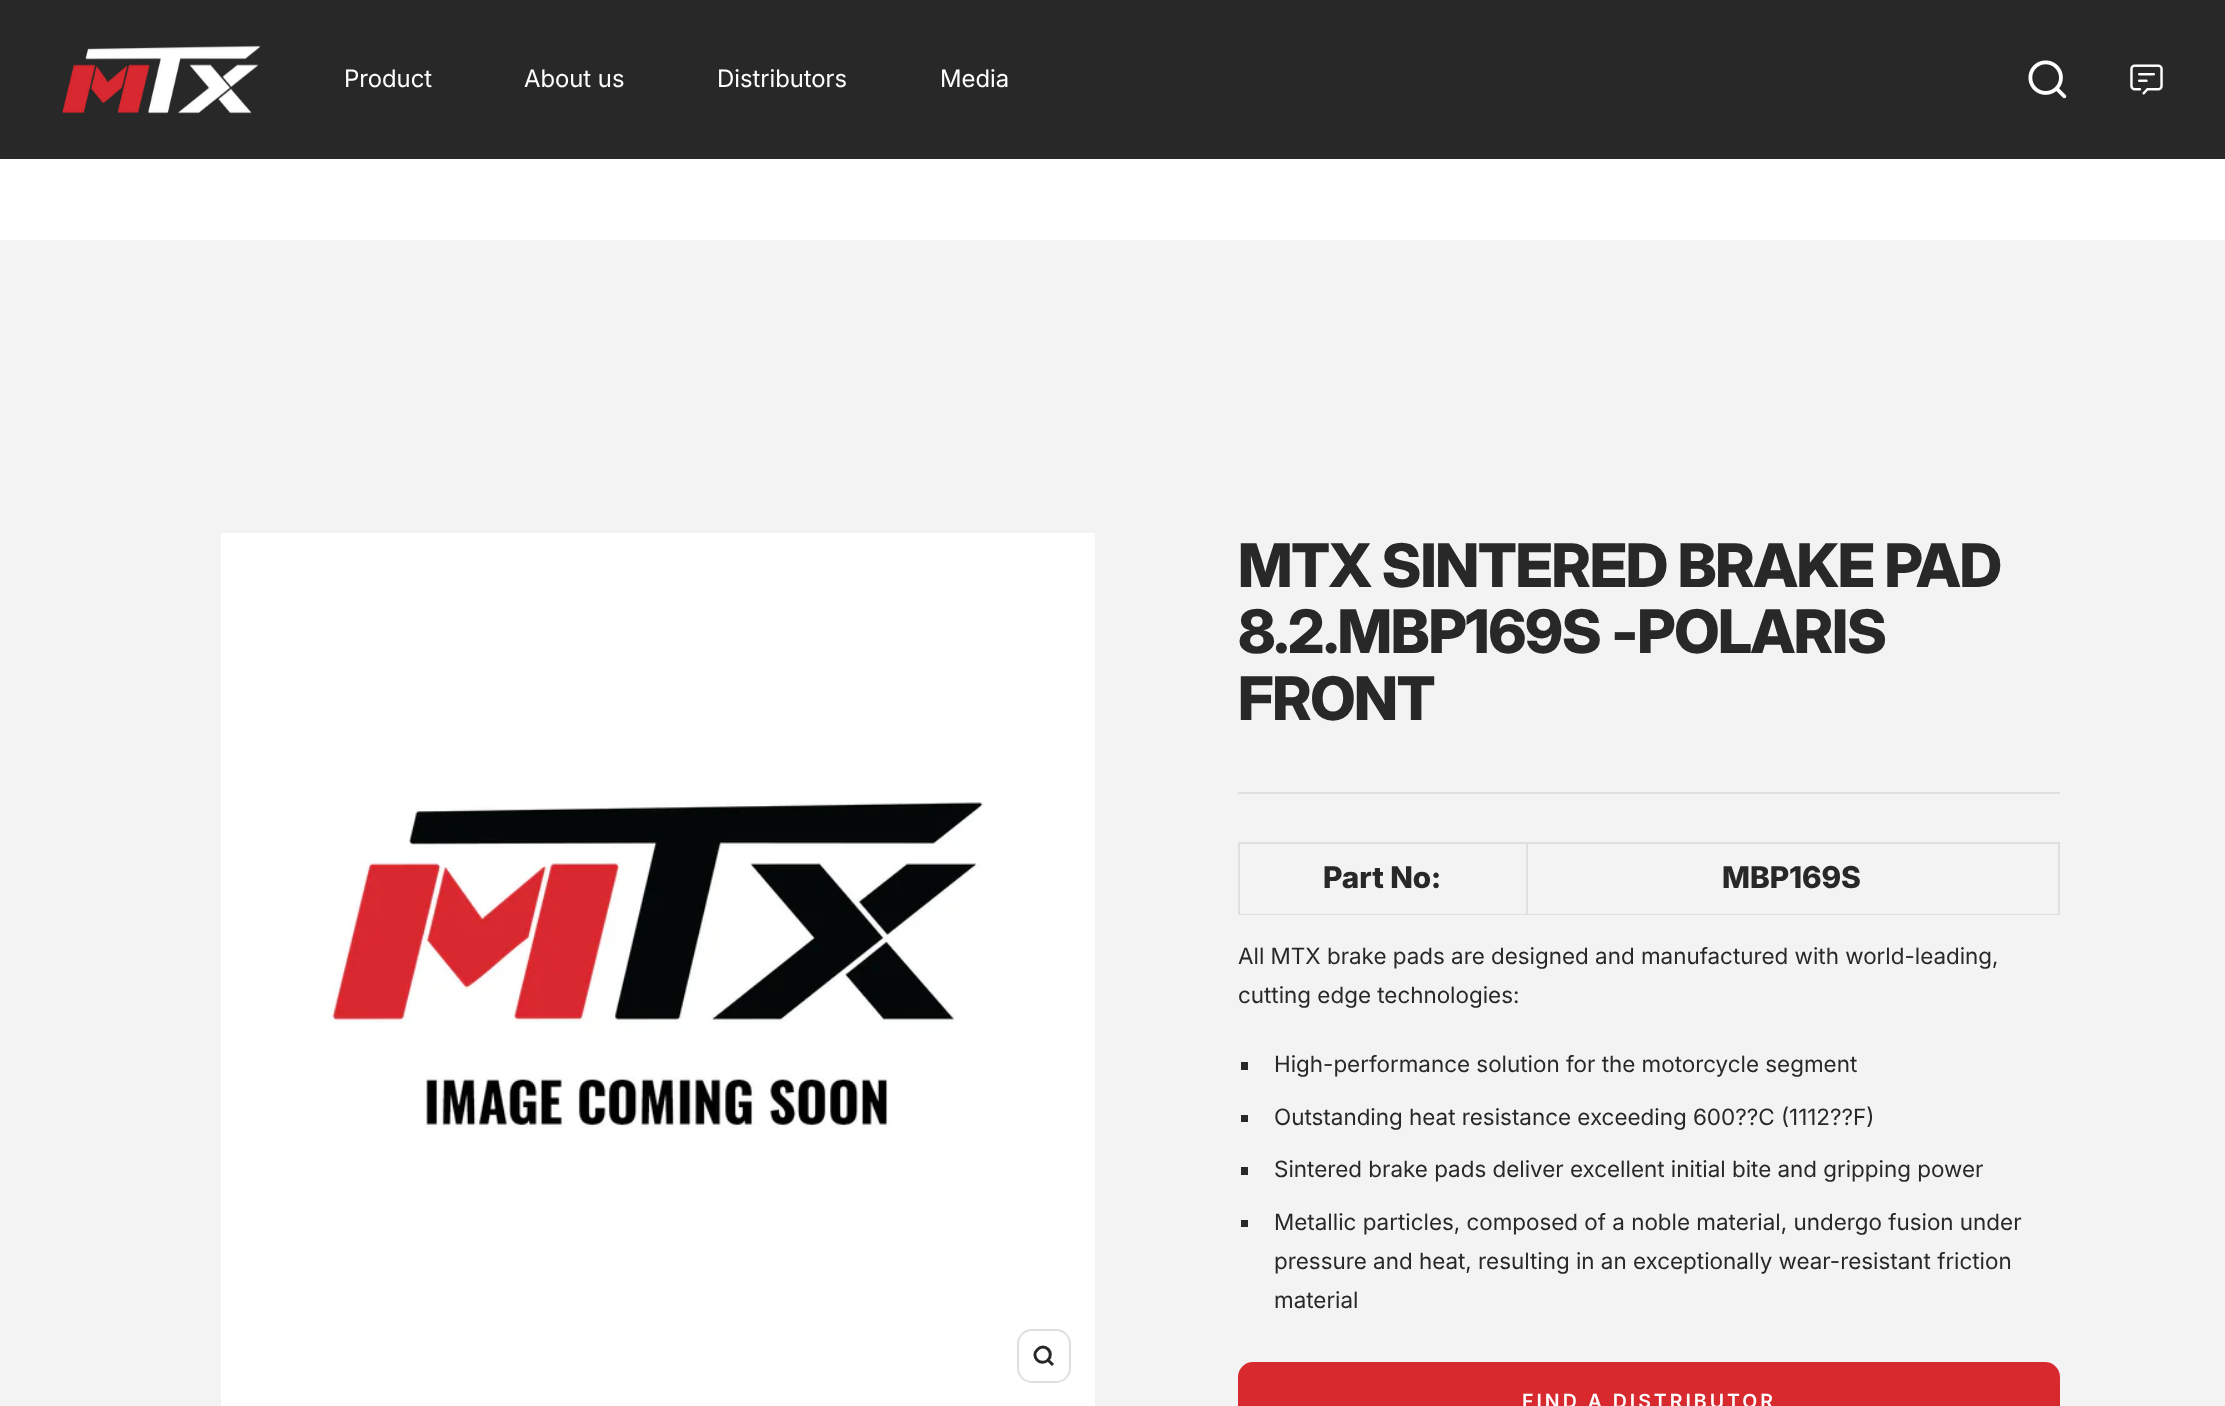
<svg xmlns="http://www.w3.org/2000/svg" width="2225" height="1406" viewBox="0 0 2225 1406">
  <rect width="100%" height="100%" fill="#ffffff"/>
  <rect x="0" y="0" width="2225" height="159" fill="#282828"/>
  <image x="62" y="45" width="199" height="69" href="img1.png"/>
  <text x="344" y="87" font-family="'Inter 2'" font-size="24" fill="#ffffff">Product</text>
  <text x="524" y="87" font-family="'Inter 2'" font-size="24" fill="#ffffff">About us</text>
  <text x="717" y="87" font-family="'Inter 2'" font-size="24" fill="#ffffff">Distributors</text>
  <text x="940" y="87" font-family="'Inter 2'" font-size="24" fill="#ffffff">Media</text>
  <image x="2028" y="60" width="39" height="39" href="img2.png"/>
  <image x="2130" y="64" width="33" height="31" href="img3.png"/>
  <rect x="0" y="240" width="2225" height="1166" fill="#f3f3f3"/>
  <image x="221" y="533" width="874" height="873" href="img4.png"/>
  <rect x="1018" y="1330" width="52" height="52" rx="14" fill="none" stroke="#dfdfdf" stroke-width="2"/>
  <path d="M1048 1360C1055 1352.5 1044.5 1342 1037.5 1349.5C1030 1356.5 1040.5 1367 1048 1360ZM1048 1360L1053 1365" fill="none" stroke="#282828" stroke-width="3"/>
  <rect x="1238" y="792" width="822" height="2" fill="#dfdfdf"/>
  <text x="1238" y="587" font-family="Inter" font-size="60" font-weight="800" letter-spacing="-1.2" fill="#282828">MTX SINTERED BRAKE PAD</text>
  <text x="1238" y="653" font-family="Inter" font-size="60" font-weight="800" letter-spacing="-1.2" fill="#282828">8.2.MBP169S -POLARIS</text>
  <text x="1238" y="720" font-family="Inter" font-size="60" font-weight="800" letter-spacing="-1.2" fill="#282828">FRONT</text>
  <rect x="1238" y="842" width="822" height="2" fill="#dfdfdf"/>
  <rect x="2058" y="842" width="2" height="73" fill="#dfdfdf"/>
  <rect x="1238" y="914" width="822" height="1" fill="#dfdfdf"/>
  <rect x="1238" y="842" width="2" height="73" fill="#dfdfdf"/>
  <text x="1323" y="888" font-family="'Inter 2'" font-size="30" font-weight="800" fill="#282828">Part No:</text>
  <rect x="1526" y="842" width="2" height="73" fill="#dfdfdf"/>
  <text x="1722" y="888" font-family="'Inter 2'" font-size="30" font-weight="800" fill="#282828">MBP169S</text>
  <text x="1238" y="964" font-family="Inter" font-size="22.5" fill="#282828">All MTX brake pads are designed and manufactured with world-leading,</text>
  <text x="1238" y="1003" font-family="Inter" font-size="22.5" fill="#282828">cutting edge technologies:</text>
  <rect x="1241" y="1062" width="7" height="8" fill="#282828"/>
  <text x="1274" y="1072" font-family="Inter" font-size="22.5" fill="#282828">High-performance solution for the motorcycle segment</text>
  <rect x="1241" y="1115" width="7" height="7" fill="#282828"/>
  <text x="1274" y="1125" font-family="Inter" font-size="22.5" fill="#282828">Outstanding heat resistance exceeding 600??C (1112??F)</text>
  <rect x="1241" y="1167" width="7" height="8" fill="#282828"/>
  <text x="1274" y="1177" font-family="Inter" font-size="22.5" fill="#282828">Sintered brake pads deliver excellent initial bite and gripping power</text>
  <rect x="1241" y="1220" width="7" height="7" fill="#282828"/>
  <text x="1274" y="1230" font-family="Inter" font-size="22.5" fill="#282828">Metallic particles, composed of a noble material, undergo fusion under</text>
  <text x="1274" y="1269" font-family="Inter" font-size="22.5" fill="#282828">pressure and heat, resulting in an exceptionally wear-resistant friction</text>
  <text x="1274" y="1308" font-family="Inter" font-size="22.5" fill="#282828">material</text>
  <rect x="1238" y="1362" width="822" height="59" rx="15" fill="#d7292e"/>
  <text x="1522" y="1408" font-family="Inter" font-size="19.5" font-weight="600" letter-spacing="3" fill="#ffffff">FIND A DISTRIBUTOR</text>
</svg>
